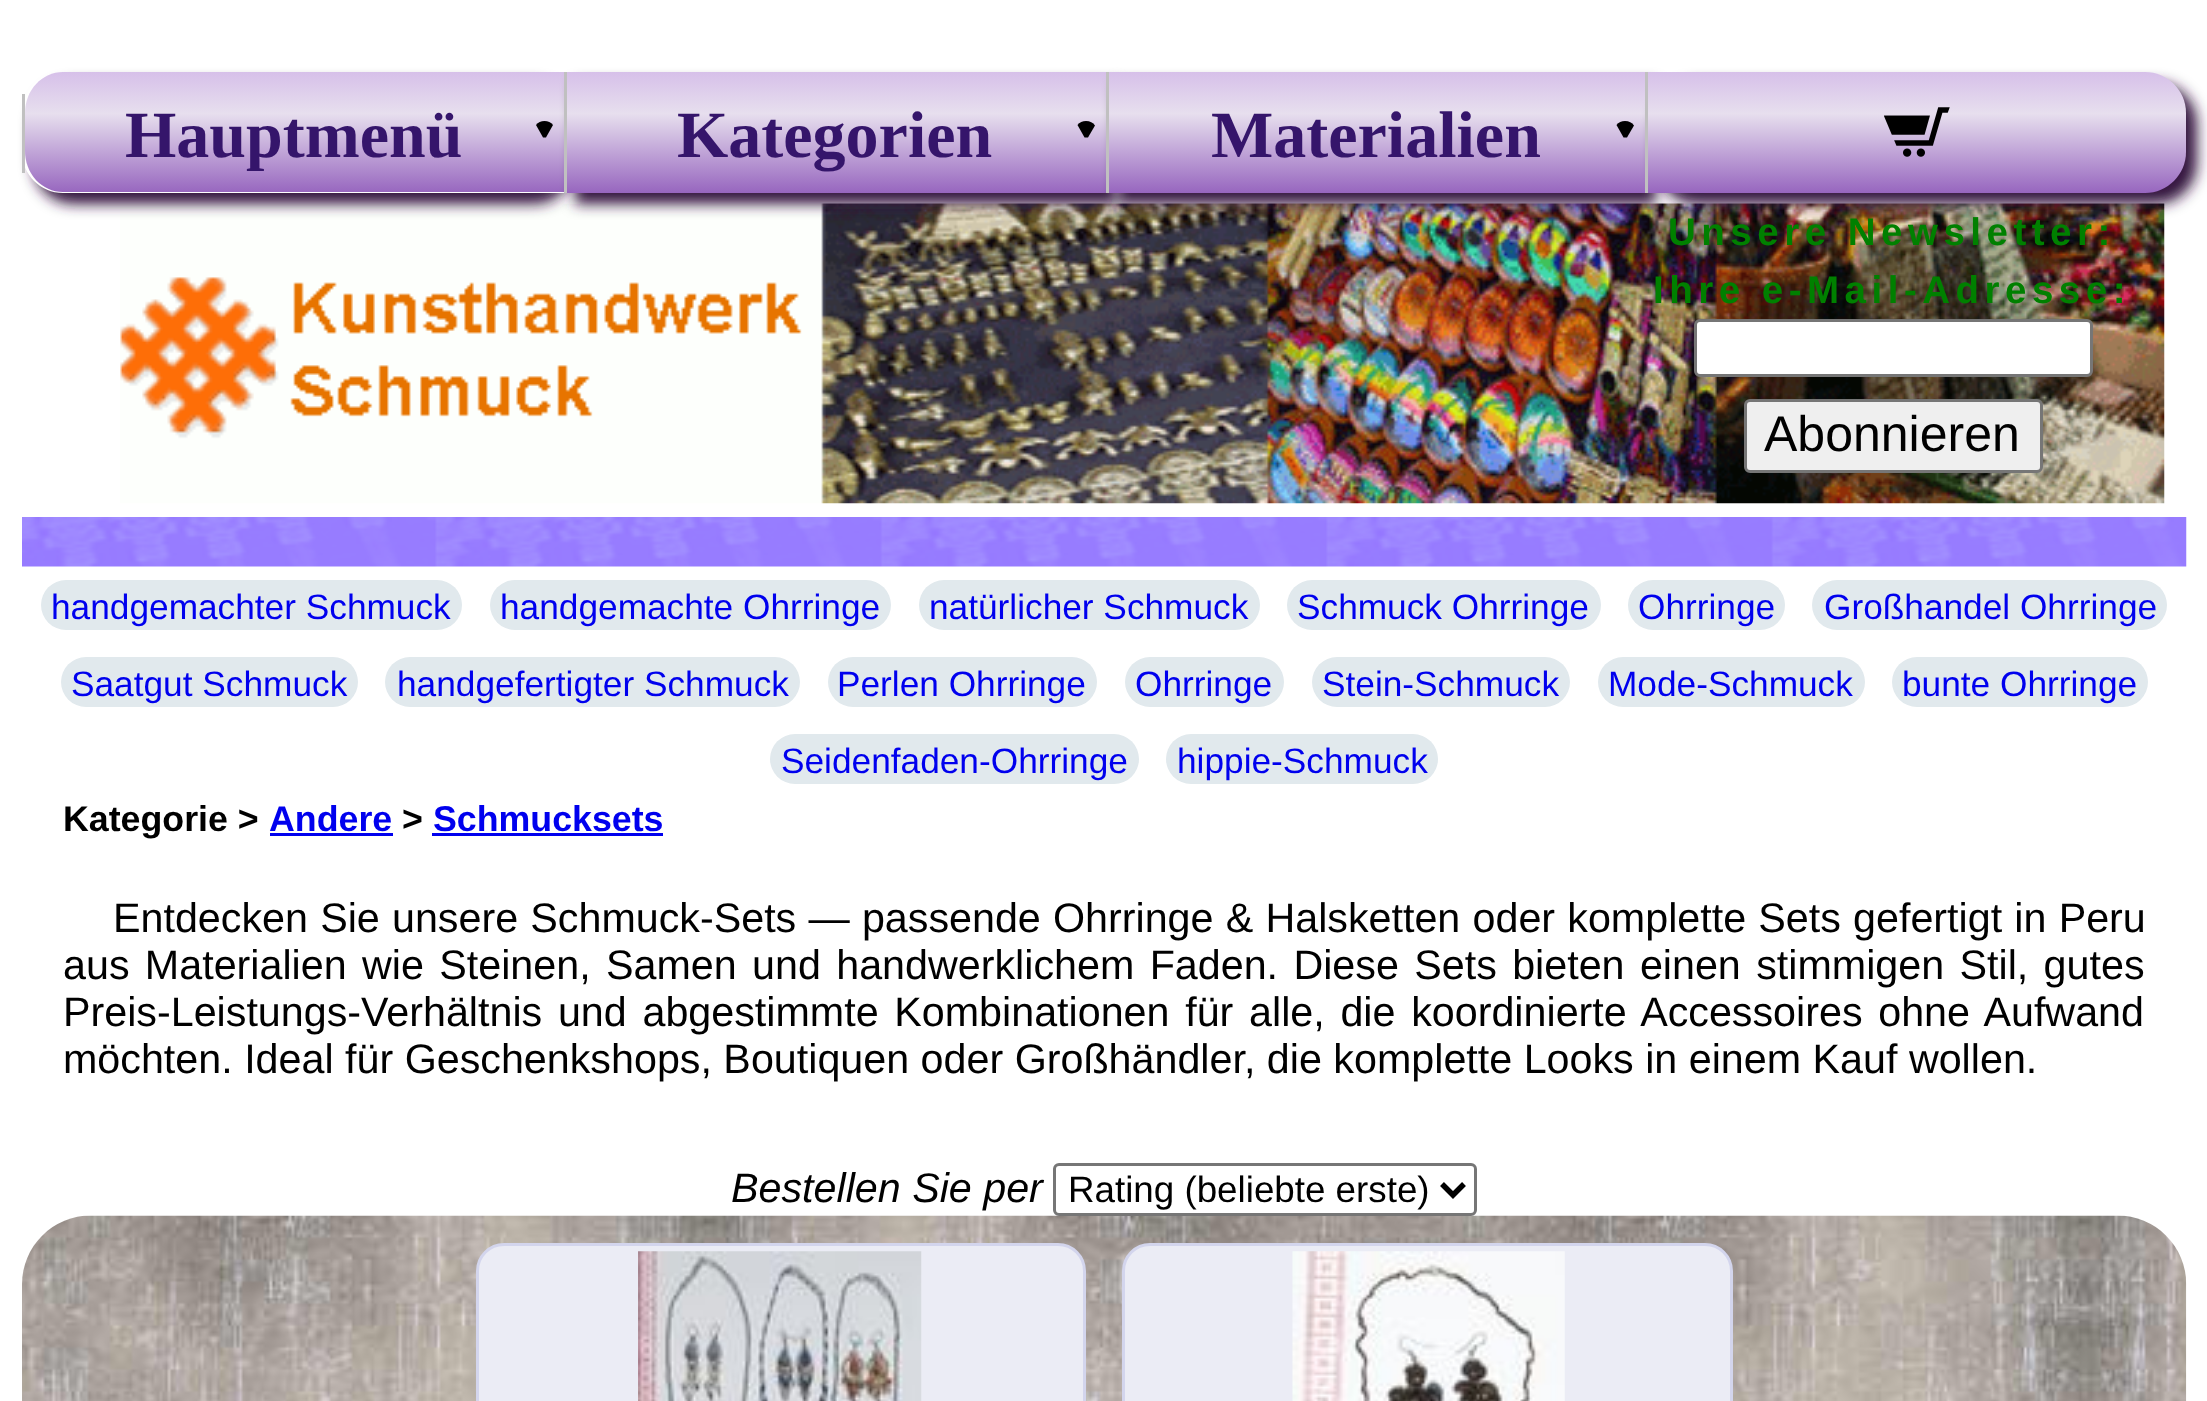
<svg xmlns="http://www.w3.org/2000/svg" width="2207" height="1401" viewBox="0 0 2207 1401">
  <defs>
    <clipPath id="clip1"><path d="M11 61H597V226H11ZM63 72H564V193H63C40.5 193 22 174.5 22 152V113C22 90.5 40.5 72 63 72Z" clip-rule="evenodd"/></clipPath>
    <filter id="blur1" x="-50%" y="-200%" width="200%" height="500%"><feGaussianBlur stdDeviation="7"/></filter>
    <linearGradient id="g1" gradientUnits="userSpaceOnUse" x1="294" y1="71" x2="294" y2="193"><stop offset="0" stop-color="#d6bfe9"/><stop offset="0.35" stop-color="#e7dfee"/><stop offset="1" stop-color="#9766bf"/></linearGradient>
    <linearGradient id="g2" gradientUnits="userSpaceOnUse" x1="836" y1="71" x2="836" y2="193"><stop offset="0" stop-color="#d6bfe9"/><stop offset="0.35" stop-color="#e7dfee"/><stop offset="1" stop-color="#9766bf"/></linearGradient>
    <linearGradient id="g3" gradientUnits="userSpaceOnUse" x1="1376" y1="71" x2="1376" y2="193"><stop offset="0" stop-color="#d6bfe9"/><stop offset="0.35" stop-color="#e7dfee"/><stop offset="1" stop-color="#9766bf"/></linearGradient>
    <linearGradient id="g4" gradientUnits="userSpaceOnUse" x1="1917" y1="71" x2="1917" y2="193"><stop offset="0" stop-color="#d6bfe9"/><stop offset="0.35" stop-color="#e7dfee"/><stop offset="1" stop-color="#9766bf"/></linearGradient>
  </defs>
  <rect width="100%" height="100%" fill="#ffffff"/>
  <image x="120" y="203" width="2045" height="301" href="img2.png"/>
  <g clip-path="url(#clip1)">
    <rect x="33" y="83" width="542" height="121" rx="41" fill="#341440" filter="url(#blur1)"/>
  </g>
  <path d="M63 72H564V192H63C42 192 25 174 25 151V113C25 90 42 72 63 72Z" fill="url(#g1)"/>
  <rect x="22" y="94" width="3" height="79" fill="#c0c0c0"/>
  <text x="125" y="157" font-family="Liberation Serif" font-size="66" font-weight="bold" fill="#35156b">Hauptmenü</text>
  <path d="M544.5 121C541 121 538 122.5 536 125L543 137.5H546L553 125C551 122.5 548 121 544.5 121Z" fill="#000000"/>
  <rect x="575" y="83" width="542" height="121" fill="#341440" filter="url(#blur1)"/>
  <rect x="567" y="72" width="539" height="121" fill="url(#g2)"/>
  <rect x="564" y="72" width="3" height="121" fill="#c0c0c0"/>
  <text x="677" y="157" font-family="Liberation Serif" font-size="66" font-weight="bold" fill="#35156b">Kategorien</text>
  <path d="M1086 121C1082.5 121 1079.5 122.5 1077.5 125L1084.5 137.5H1088L1095 125.5C1093 122.5 1090 121 1086 121Z" fill="#000000"/>
  <rect x="1117" y="83" width="539" height="121" fill="#341440" filter="url(#blur1)"/>
  <rect x="1109" y="72" width="536" height="121" fill="url(#g3)"/>
  <rect x="1106" y="72" width="3" height="121" fill="#c0c0c0"/>
  <text x="1211" y="157" font-family="Liberation Serif" font-size="66" font-weight="bold" fill="#35156b">Materialien</text>
  <path d="M1625 121C1621.5 121 1618.5 122.5 1616.5 125L1623.5 137.5H1627L1634 125.5C1632 122.5 1629 121 1625 121Z" fill="#000000"/>
  <rect x="1656" y="83" width="541" height="121" rx="41" fill="#341440" filter="url(#blur1)"/>
  <path d="M1647 72H2145C2167.5 72 2186 90.5 2186 113V152C2186 174.5 2167.5 193 2145 193H1647Z" fill="url(#g4)"/>
  <rect x="1645" y="72" width="3" height="121" fill="#c0c0c0"/>
  <image x="1884" y="107" width="66" height="50" href="img1.png"/>
  <text x="1668" y="245" font-family="Liberation Sans" font-size="38.5" font-weight="bold" letter-spacing="5.5" fill="#008000">Unsere Newsletter:</text>
  <text x="1653" y="303" font-family="Liberation Sans" font-size="38.5" font-weight="bold" letter-spacing="5.5" fill="#008000">Ihre e-Mail-Adresse:</text>
  <rect x="1695.5" y="320.5" width="396" height="55" rx="4.5" fill="#ffffff" stroke="#767676" stroke-width="3"/>
  <rect x="1745.5" y="400.5" width="296" height="71" rx="4.5" fill="#efefef" stroke="#767676" stroke-width="3"/>
  <text x="1764" y="451" font-family="Liberation Sans" font-size="50" fill="#000000">Abonnieren</text>
  <image x="22" y="517" width="2165" height="50" href="img3.png"/>
  <rect x="41" y="580" width="421" height="50" rx="25" fill="#e1e9ed"/>
  <text x="51" y="619" font-family="Liberation Sans" font-size="35.25" fill="#0000ee">handgemachter Schmuck</text>
  <rect x="490" y="580" width="401" height="50" rx="25" fill="#e1e9ed"/>
  <text x="500" y="619" font-family="Liberation Sans" font-size="35.25" fill="#0000ee">handgemachte Ohrringe</text>
  <rect x="919" y="580" width="341" height="50" rx="25" fill="#e1e9ed"/>
  <text x="929" y="619" font-family="Liberation Sans" font-size="35.25" fill="#0000ee">natürlicher Schmuck</text>
  <rect x="1287" y="580" width="314" height="50" rx="25" fill="#e1e9ed"/>
  <text x="1297" y="619" font-family="Liberation Sans" font-size="35.25" fill="#0000ee">Schmuck Ohrringe</text>
  <rect x="1628" y="580" width="157" height="50" rx="25" fill="#e1e9ed"/>
  <text x="1638" y="619" font-family="Liberation Sans" font-size="35.25" fill="#0000ee">Ohrringe</text>
  <rect x="1812" y="580" width="355" height="50" rx="25" fill="#e1e9ed"/>
  <text x="1824" y="619" font-family="Liberation Sans" font-size="35.25" fill="#0000ee">Großhandel Ohrringe</text>
  <rect x="61" y="657" width="297" height="50" rx="25" fill="#e1e9ed"/>
  <text x="71" y="696" font-family="Liberation Sans" font-size="35.25" fill="#0000ee">Saatgut Schmuck</text>
  <rect x="385" y="657" width="415" height="50" rx="25" fill="#e1e9ed"/>
  <text x="397" y="696" font-family="Liberation Sans" font-size="35.25" fill="#0000ee">handgefertigter Schmuck</text>
  <rect x="828" y="657" width="269" height="50" rx="25" fill="#e1e9ed"/>
  <text x="837" y="696" font-family="Liberation Sans" font-size="35.25" fill="#0000ee">Perlen Ohrringe</text>
  <rect x="1125" y="657" width="159" height="50" rx="25" fill="#e1e9ed"/>
  <text x="1135" y="696" font-family="Liberation Sans" font-size="35.25" fill="#0000ee">Ohrringe</text>
  <rect x="1312" y="657" width="258" height="50" rx="25" fill="#e1e9ed"/>
  <text x="1322" y="696" font-family="Liberation Sans" font-size="35.25" fill="#0000ee">Stein-Schmuck</text>
  <rect x="1598" y="657" width="267" height="50" rx="25" fill="#e1e9ed"/>
  <text x="1608" y="696" font-family="Liberation Sans" font-size="35.25" fill="#0000ee">Mode-Schmuck</text>
  <rect x="1892" y="657" width="256" height="50" rx="25" fill="#e1e9ed"/>
  <text x="1902" y="696" font-family="Liberation Sans" font-size="35.25" fill="#0000ee">bunte Ohrringe</text>
  <rect x="770" y="734" width="369" height="50" rx="25" fill="#e1e9ed"/>
  <text x="781" y="773" font-family="Liberation Sans" font-size="35.25" fill="#0000ee">Seidenfaden-Ohrringe</text>
  <rect x="1166" y="734" width="272" height="50" rx="25" fill="#e1e9ed"/>
  <text x="1177" y="773" font-family="Liberation Sans" font-size="35.25" fill="#0000ee">hippie-Schmuck</text>
  <text x="63" y="831" font-family="Liberation Sans" font-size="35.75" font-weight="bold" fill="#000000">Kategorie &gt;</text>
  <text x="269" y="831" font-family="Liberation Sans" font-size="35.75" font-weight="bold" fill="#0000ee">Andere</text>
  <rect x="270" y="833" width="123" height="3" fill="#0000ee"/>
  <text x="402" y="831" font-family="Liberation Sans" font-size="35.75" font-weight="bold" fill="#000000">&gt;</text>
  <text x="433" y="831" font-family="Liberation Sans" font-size="35.75" font-weight="bold" fill="#0000ee">Schmucksets</text>
  <rect x="432" y="833" width="231" height="3" fill="#0000ee"/>
  <text x="113" y="932" word-spacing="0.75" font-family="Liberation Sans" font-size="41.25" fill="#000000">Entdecken Sie unsere Schmuck-Sets — passende Ohrringe &amp; Halsketten oder komplette Sets gefertigt in Peru</text>
  <text x="63" y="979" word-spacing="3.9" font-family="Liberation Sans" font-size="41.25" fill="#000000">aus Materialien wie Steinen, Samen und handwerklichem Faden. Diese Sets bieten einen stimmigen Stil, gutes</text>
  <text x="63" y="1026" word-spacing="4.25" font-family="Liberation Sans" font-size="41.25" fill="#000000">Preis-Leistungs-Verhältnis und abgestimmte Kombinationen für alle, die koordinierte Accessoires ohne Aufwand</text>
  <text x="63" y="1073" font-family="Liberation Sans" font-size="41.25" fill="#000000">möchten. Ideal für Geschenkshops, Boutiquen oder Großhändler, die komplette Looks in einem Kauf wollen.</text>
  <text x="731" y="1202" font-family="Liberation Sans" font-size="41.25" font-style="italic" fill="#000000">Bestellen Sie per</text>
  <image x="22" y="1215" width="2165" height="186" href="img4.png"/>
  <rect x="1054.5" y="1164.5" width="421" height="50" rx="4.5" fill="#ffffff" stroke="#767676" stroke-width="3"/>
  <path d="M1442 1184L1453 1195L1464 1184" fill="none" stroke="#000000" stroke-width="5.5"/>
  <text x="1068" y="1202" font-family="Liberation Sans" font-size="36.75" fill="#000000">Rating (beliebte erste)</text>
  <rect x="477.5" y="1244.5" width="607" height="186" rx="26.5" fill="#ebecf5" stroke="#d3d5ed" stroke-width="3"/>
  <image x="638" y="1251" width="284" height="150" href="img5.png"/>
  <rect x="1123.5" y="1244.5" width="608" height="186" rx="26.5" fill="#ebecf5" stroke="#d3d5ed" stroke-width="3"/>
  <image x="1292" y="1251" width="273" height="150" href="img6.png"/>
</svg>
